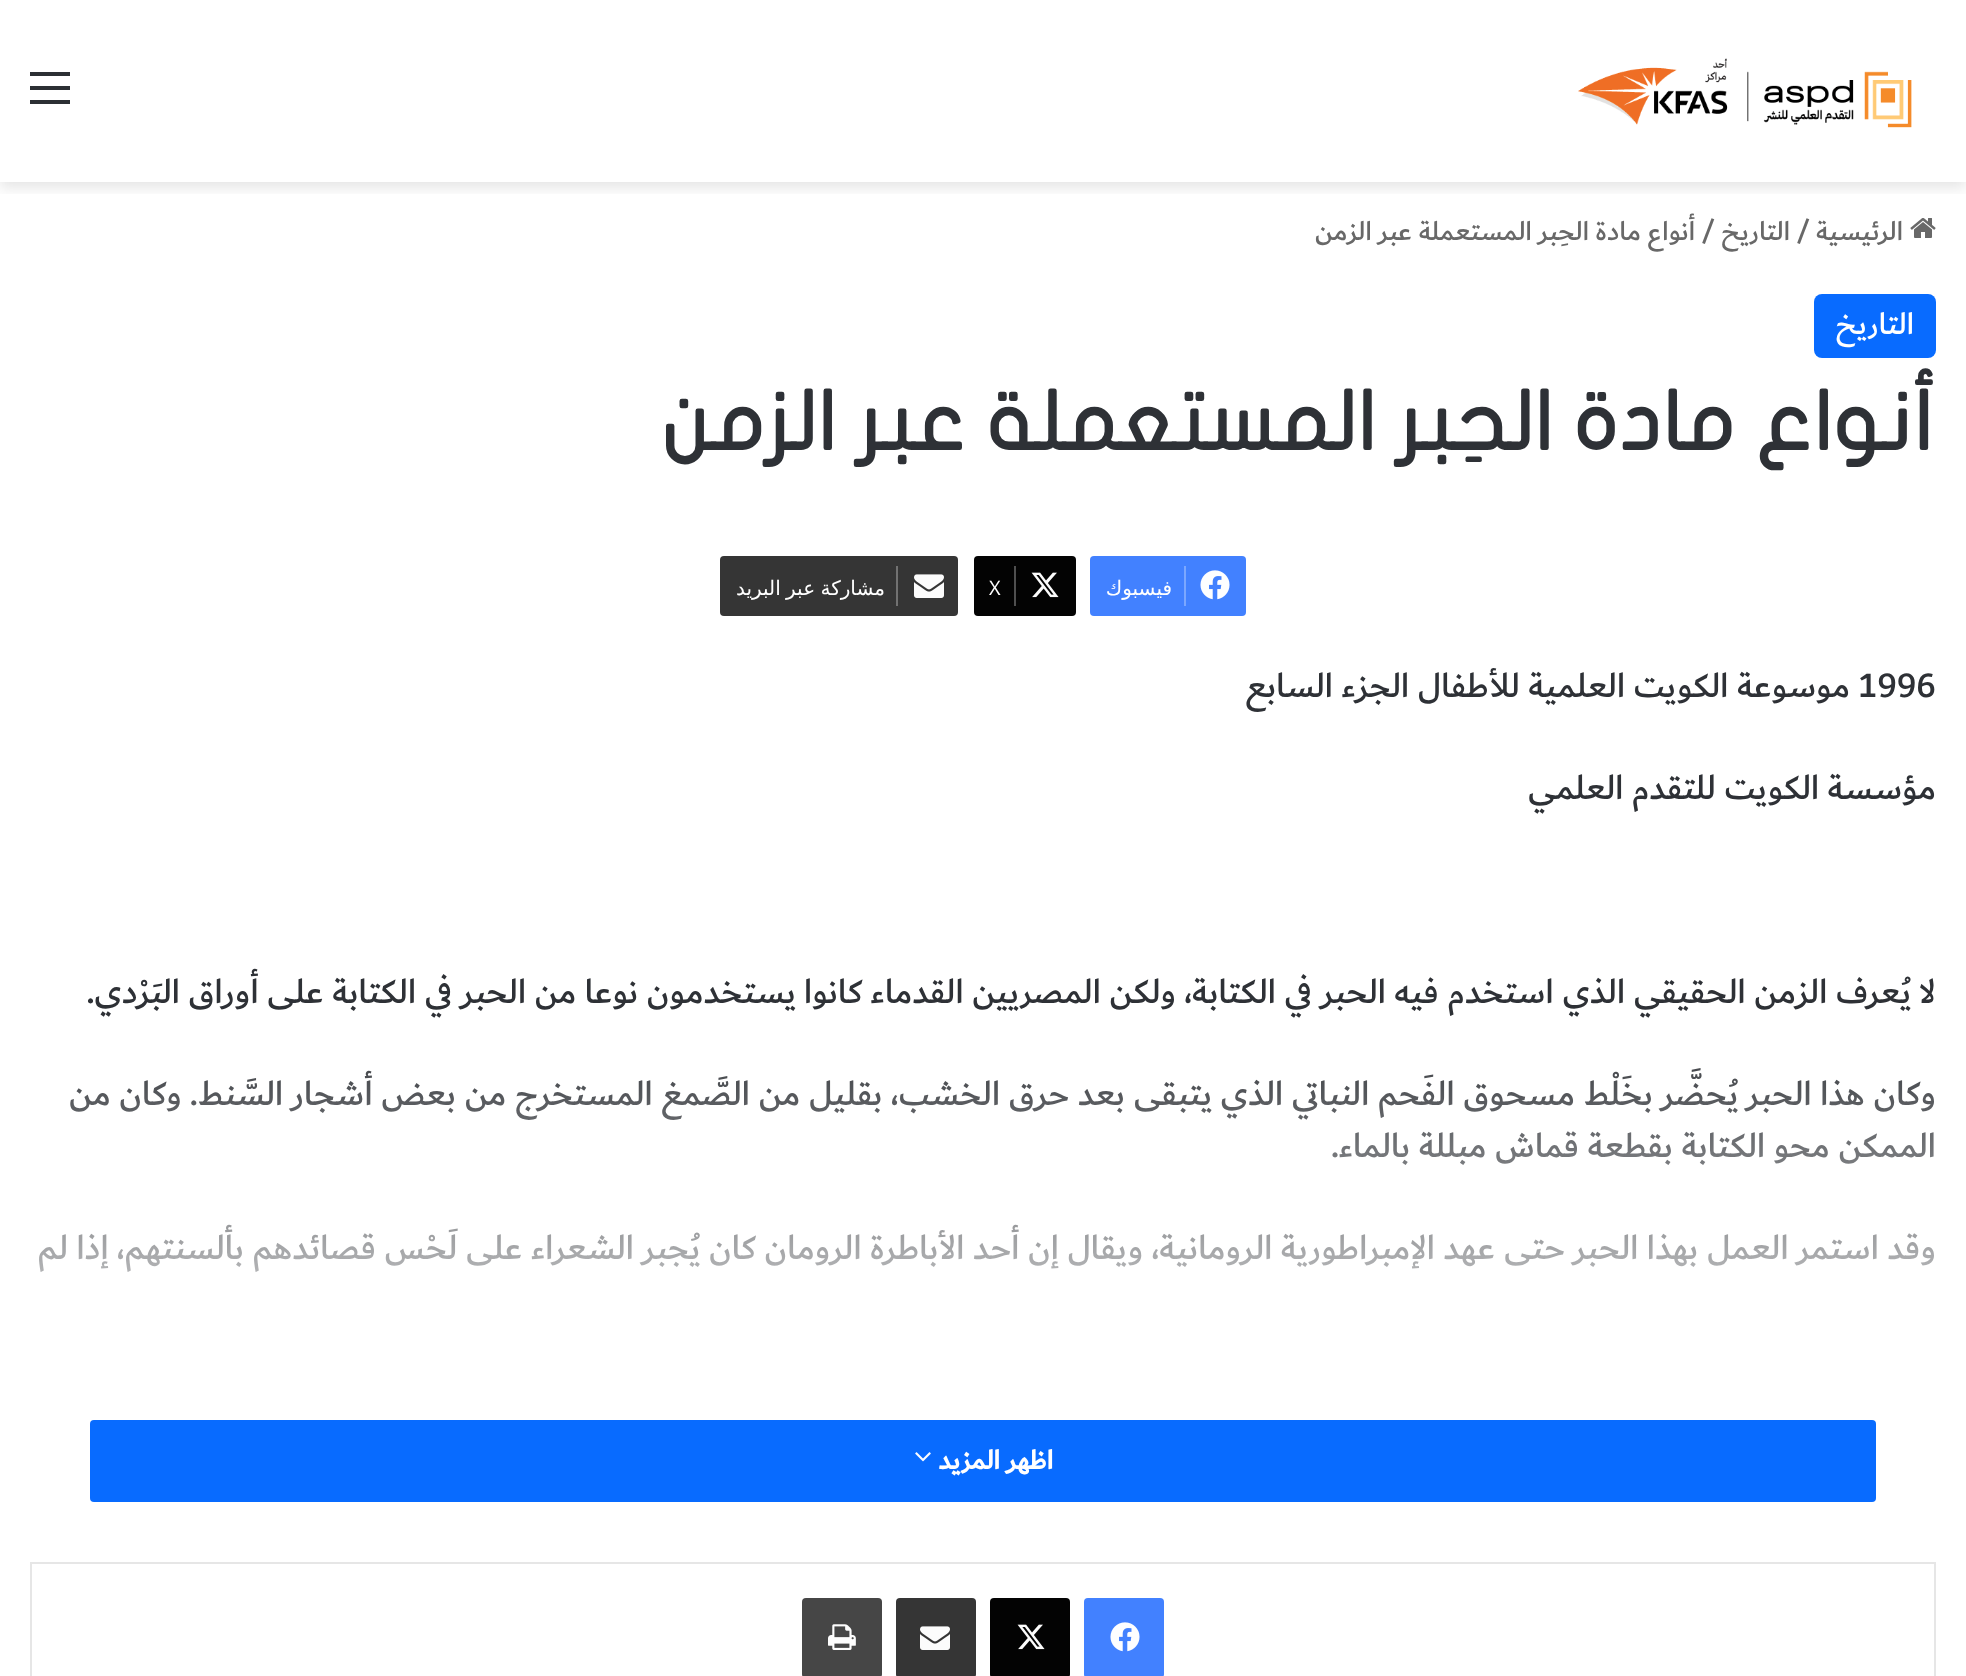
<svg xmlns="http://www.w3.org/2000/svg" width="1966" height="1676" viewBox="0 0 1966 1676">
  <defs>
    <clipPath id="clip1"><rect x="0" y="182" width="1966" height="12"/></clipPath>
    <filter id="blur1" x="-50%" y="-200%" width="200%" height="500%"><feGaussianBlur stdDeviation="7"/></filter>
    <linearGradient id="g1" gradientUnits="userSpaceOnUse" x1="983" y1="620" x2="983" y2="1420"><stop offset="0.5" stop-color="#ffffff" stop-opacity="0"/><stop offset="1" stop-color="#ffffff"/></linearGradient>
  </defs>
  <rect width="100%" height="100%" fill="#ffffff"/>
  <g clip-path="url(#clip1)">
    <rect x="0" y="6" width="1966" height="182" fill="#000000" fill-opacity="0.1" filter="url(#blur1)"/>
  </g>
  <image x="1578" y="58" width="334" height="70" href="img1.png"/>
  <rect x="30" y="86" width="40" height="4" fill="#2c2f34"/>
  <rect x="30" y="72" width="40" height="4" fill="#2c2f34"/>
  <rect x="30" y="100" width="40" height="4" fill="#2c2f34"/>
  <image x="1910" y="218" width="26" height="20" href="img2.png"/>
  <text x="1903" y="240" font-family="'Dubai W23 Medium'" font-size="28" font-weight="500" direction="rtl" fill="#686868">الرئيسية</text>
  <text x="1796" y="240" font-family="'Dubai W23 Medium'" font-size="28" font-weight="500" fill="#686868">/</text>
  <text x="1790" y="240" font-family="'Dubai W23 Medium'" font-size="28" font-weight="500" direction="rtl" fill="#686868">التاريخ</text>
  <text x="1701" y="240" font-family="'Dubai W23 Medium'" font-size="28" font-weight="500" fill="#686868">/</text>
  <text x="1695" y="240" font-family="'Dubai W23 Medium'" font-size="28" font-weight="500" direction="rtl" fill="#686868">أنواع مادة الحِبر المستعملة عبر الزمن</text>
  <rect x="1814" y="294" width="122" height="64" rx="8" fill="#086bff"/>
  <text x="1914" y="334" font-family="'Dubai W23 Medium'" font-size="32" font-weight="500" direction="rtl" fill="#ffffff">التاريخ</text>
  <text x="1936" y="450" font-family="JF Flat" font-size="82" font-weight="bold" direction="rtl" fill="#2e3136">أنواع مادة الحِبر المستعملة عبر الزمن</text>
  <rect x="1090" y="556" width="156" height="60" rx="4" fill="#4281ff"/>
  <image x="1200" y="570" width="30" height="30" href="img3.png"/>
  <rect x="1184" y="566" width="2" height="40" fill="#7ba7ff"/>
  <text x="1172" y="595" font-family="DejaVu Sans" font-size="20" direction="rtl" fill="#ffffff">فيسبوك</text>
  <rect x="974" y="556" width="102" height="60" rx="4" fill="#030303"/>
  <image x="1031" y="572" width="28" height="26" href="img4.png"/>
  <rect x="1014" y="566" width="2" height="40" fill="#4f4f4f"/>
  <text x="989" y="595" font-family="Open Sans" font-size="20" fill="#ffffff">X</text>
  <rect x="720" y="556" width="238" height="60" rx="4" fill="#353535"/>
  <image x="914" y="574" width="30" height="24" href="img5.png"/>
  <rect x="896" y="566" width="2" height="40" fill="#727272"/>
  <text x="885" y="595" word-spacing="-1" font-family="DejaVu Sans" font-size="20" direction="rtl" fill="#ffffff">مشاركة عبر البريد</text>
  <text x="1858" y="697" font-family="'Dubai W23 Medium'" font-size="36" font-weight="500" fill="#2e3136">1996</text>
  <text x="1850" y="697" font-family="'Dubai W23 Medium'" font-size="36" font-weight="500" direction="rtl" fill="#2e3136">موسوعة الكويت العلمية للأطفال الجزء السابع</text>
  <text x="1936" y="799" font-family="'Dubai W23 Medium'" font-size="36" font-weight="500" direction="rtl" fill="#2e3136">مؤسسة الكويت للتقدم العلمي</text>
  <text x="1936" y="1003" font-family="'Dubai W23 Medium'" font-size="36" font-weight="500" direction="rtl" fill="#2e3136">لا يُعرف الزمن الحقيقي الذي استخدم فيه الحبر في الكتابة، ولكن المصريين القدماء كانوا يستخدمون نوعا من الحبر في الكتابة على أوراق البَرْدي.</text>
  <text x="1936" y="1105" font-family="'Dubai W23 Medium'" font-size="36" font-weight="500" direction="rtl" fill="#2e3136">وكان هذا الحبر يُحضَّر بخَلْط مسحوق الفَحم النباتي الذي يتبقى بعد حرق الخشب، بقليل من الصَّمغ المستخرج من بعض أشجار السَّنط. وكان من</text>
  <text x="1936" y="1157" font-family="'Dubai W23 Medium'" font-size="36" font-weight="500" direction="rtl" fill="#2e3136">الممكن محو الكتابة بقطعة قماش مبللة بالماء.</text>
  <text x="1936" y="1259" font-family="'Dubai W23 Medium'" font-size="36" font-weight="500" direction="rtl" fill="#2e3136">وقد استمر العمل بهذا الحبر حتى عهد الإمبراطورية الرومانية، ويقال إن أحد الأباطرة الرومان كان يُجبر الشعراء على لَحْس قصائدهم بألسنتهم، إذا لم</text>
  <rect x="39" y="1068" width="1895" height="204" fill="url(#g1)"/>
  <rect x="90" y="1420" width="1786" height="82" rx="4" fill="#086bff"/>
  <text x="1053" y="1469" font-family="'Dubai W23 Medium'" font-size="28" font-weight="bold" direction="rtl" fill="#ffffff">اظهر المزيد</text>
  <image x="915" y="1452" width="16" height="10" href="img6.png"/>
  <rect x="31" y="1563" width="1904" height="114" fill="none" stroke="#e6e6e6" stroke-width="2"/>
  <rect x="1084" y="1598" width="80" height="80" rx="4" fill="#4281ff"/>
  <image x="1110" y="1622" width="30" height="30" href="img3.png"/>
  <rect x="990" y="1598" width="80" height="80" rx="4" fill="#030303"/>
  <image x="1017" y="1624" width="28" height="26" href="img4.png"/>
  <rect x="896" y="1598" width="80" height="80" rx="4" fill="#353535"/>
  <image x="920" y="1626" width="30" height="24" href="img5.png"/>
  <rect x="802" y="1598" width="80" height="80" rx="4" fill="#464646"/>
  <image x="828" y="1624" width="28" height="26" href="img7.png"/>
</svg>
